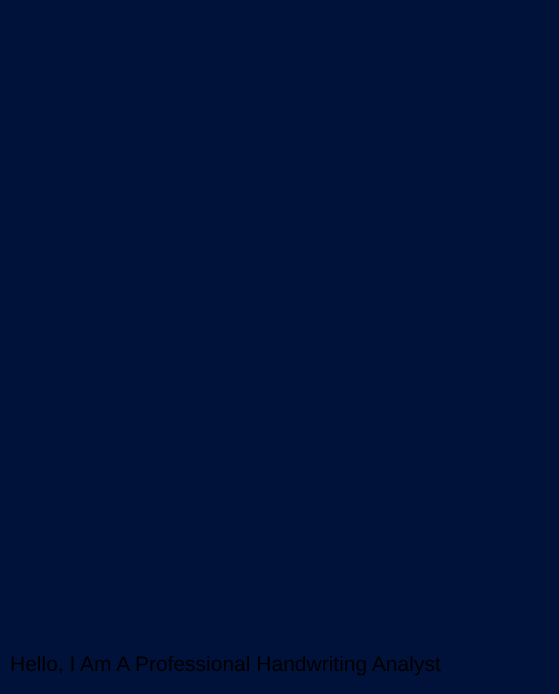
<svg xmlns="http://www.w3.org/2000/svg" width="559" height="694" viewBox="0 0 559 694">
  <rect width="100%" height="100%" fill="#00123a"/>
  <text x="10" y="671" font-family="Liberation Sans" font-size="21" fill="#000000">Hello, I Am A Professional Handwriting Analyst</text>
</svg>
